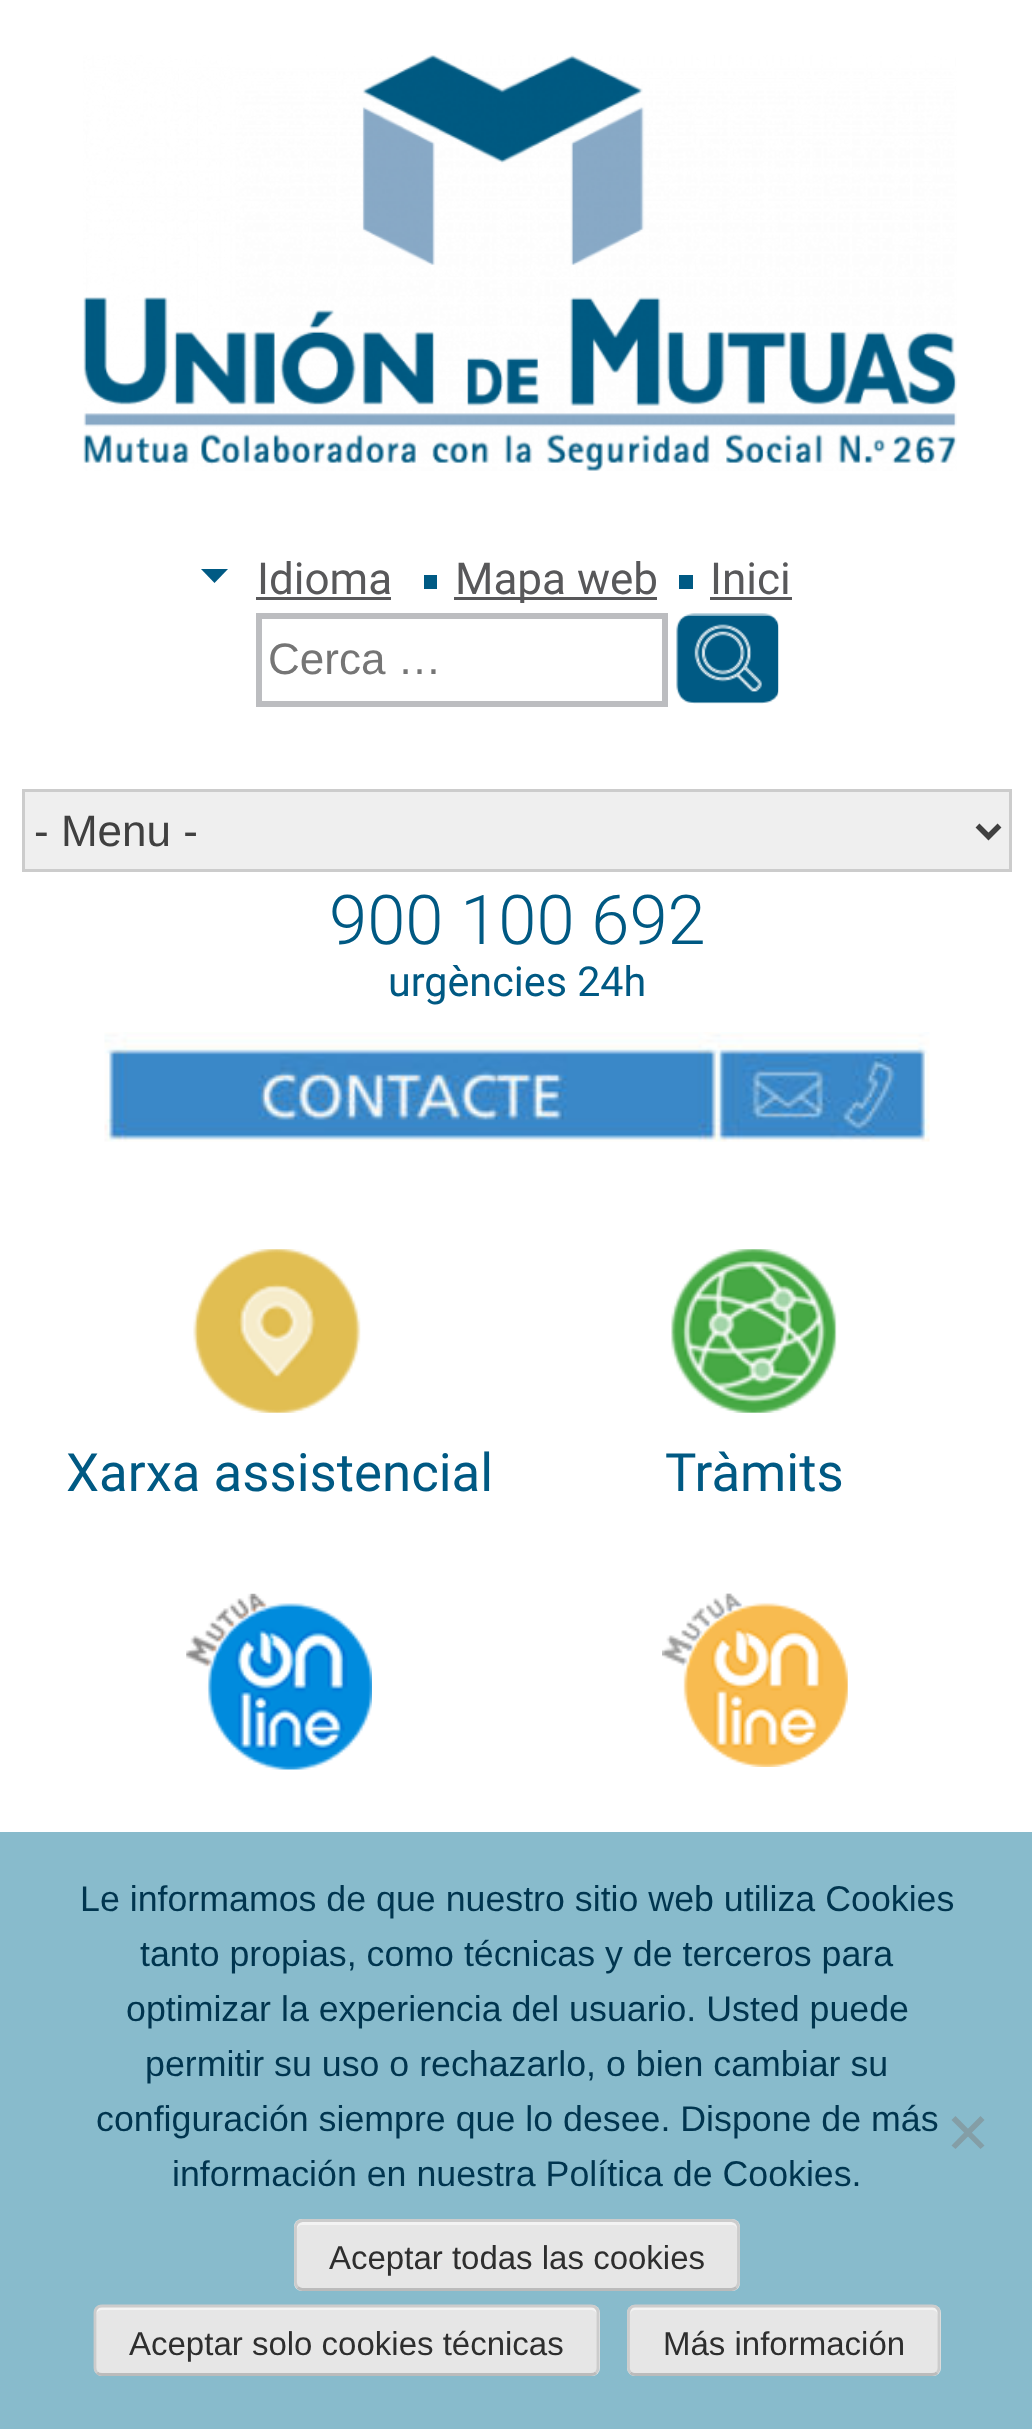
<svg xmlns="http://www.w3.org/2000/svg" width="1032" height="2429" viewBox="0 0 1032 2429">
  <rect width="100%" height="100%" fill="#ffffff"/>
  <image x="83" y="55" width="874" height="416" href="img1.png"/>
  <path d="M201 569H228L214.5 583Z" fill="#005a84"/>
  <text x="257" y="594" font-family="Roboto" font-size="44" fill="#58585a">Idioma</text>
  <rect x="256" y="597" width="135" height="3" fill="#58585a"/>
  <rect x="424" y="575" width="13" height="14" fill="#005a84"/>
  <rect x="454" y="597" width="203" height="3" fill="#58585a"/>
  <text x="455" y="594" font-family="Roboto" font-size="44" fill="#58585a">Mapa web</text>
  <rect x="679" y="575" width="14" height="14" fill="#005a84"/>
  <text x="710" y="594" font-family="Roboto" font-size="44" fill="#58585a">Inici</text>
  <rect x="710" y="597" width="82" height="3" fill="#58585a"/>
  <rect x="259" y="616" width="406" height="88" fill="none" stroke="#bcbdc0" stroke-width="6"/>
  <text x="268" y="674" font-family="Liberation Sans" font-size="44" fill="#757575">Cerca …</text>
  <image x="676" y="613" width="103" height="91" href="img2.png"/>
  <path d="M685 616H770C775 616 778 620 778 624V621C778 617 774 613 770 613H685C681 613 677 616 677 620C679 618 682 616 685 616Z" fill="#ffffff" fill-opacity="0.5"/>
  <rect x="23.5" y="790.5" width="987" height="80" fill="#efefef" stroke="#cccccc" stroke-width="3"/>
  <path d="M977.5 825.5L988.5 836.5L999.5 825.5" fill="none" stroke="#404040" stroke-width="5.5"/>
  <text x="34" y="846" font-family="Liberation Sans" font-size="44" fill="#404040">- Menu -</text>
  <text x="329" y="944" font-family="Roboto" font-size="68.75" font-weight="300" fill="#005983">900 100 692</text>
  <text x="388" y="996" font-family="Roboto" font-size="41.25" fill="#005983">urgències 24h</text>
  <image x="104" y="1032" width="826" height="110" href="img3.png"/>
  <image x="193" y="1249" width="168" height="164" href="img4.png"/>
  <text x="66" y="1491" font-family="Roboto" font-size="52.75" fill="#005983">Xarxa assistencial</text>
  <image x="671" y="1249" width="166" height="164" href="img5.png"/>
  <text x="665" y="1491" font-family="Roboto" font-size="52.75" fill="#005983">Tràmits</text>
  <image x="186" y="1593" width="186" height="177" href="img6.png"/>
  <image x="662" y="1593" width="186" height="174" href="img7.png"/>
  <rect x="0" y="1832" width="1032" height="597" fill="#88bbcc"/>
  <text x="80" y="1911" font-family="Liberation Sans" font-size="35.75" fill="#00354f">Le informamos de que nuestro sitio web utiliza Cookies</text>
  <text x="140" y="1966" font-family="Liberation Sans" font-size="35.75" fill="#00354f">tanto propias, como técnicas y de terceros para</text>
  <text x="126" y="2021" font-family="Liberation Sans" font-size="35.75" fill="#00354f">optimizar la experiencia del usuario. Usted puede</text>
  <text x="145" y="2076" font-family="Liberation Sans" font-size="35.75" fill="#00354f">permitir su uso o rechazarlo, o bien cambiar su</text>
  <text x="96" y="2131" font-family="Liberation Sans" font-size="35.75" fill="#00354f">configuración siempre que lo desee. Dispone de más</text>
  <text x="172" y="2186" font-family="Liberation Sans" font-size="35.75" fill="#00354f">información en nuestra Política de Cookies.</text>
  <path d="M980.5 2116L984.5 2120L955.5 2149L951.5 2145.5Z" fill="#849ea6"/>
  <path d="M951.5 2120L955.5 2116L984.5 2145.5L980.5 2149Z" fill="#849ea6"/>
  <rect x="294" y="2219" width="446" height="72" rx="8" fill="#e6e6e6"/>
  <path d="M302 2225H732C735 2225 737 2227 737 2230V2228C737 2225 734 2222 731 2222H303C300 2222 297 2225 297 2228V2230C297 2227 299 2225 302 2225Z" fill="#f3f3f3"/>
  <path d="M736.5 2287.5C735 2288.5 733.5 2289.5 731.5 2289.5H302.5C300.5 2289.5 299 2288.5 297.5 2287.5" fill="none" stroke="#bbbbbb" stroke-width="2.8"/>
  <path d="M297.5 2287.5C296.5 2286 295.5 2284.5 295.5 2282.5V2227.5C295.5 2225.5 296.5 2224 297.5 2222.5C299 2221.5 300.5 2220.5 302.5 2220.5H731.5C733.5 2220.5 735 2221.5 736.5 2222.5C737.5 2224 738.5 2225.5 738.5 2227.5V2282.5C738.5 2284.5 737.5 2286 736.5 2287.5" fill="none" stroke="#cccccc" stroke-width="2.8"/>
  <text x="329" y="2269" font-family="Liberation Sans" font-size="33" fill="#2e2e2e">Aceptar todas las cookies</text>
  <rect x="94" y="2305" width="506" height="71" rx="8" fill="#e6e6e6"/>
  <path d="M102 2310H591C594 2310 597 2312 597 2316C597 2312 596 2307 591 2307H102C97 2307 96 2312 96 2316C96 2312 99 2310 102 2310Z" fill="#f3f3f3"/>
  <path d="M596 2372.5C595 2374 593 2374.5 591 2374.5H102C100 2374.5 98 2374 97 2372.5" fill="none" stroke="#bbbbbb" stroke-width="2.8"/>
  <path d="M97 2372.5C95.5 2371.5 95 2369.5 95 2368V2313C95 2311 95.5 2309 97 2308C98 2306.5 100 2306 102 2306H591C593 2306 595 2306.5 596 2308C597.5 2309 598 2311 598 2313V2368C598 2369.5 597.5 2371.5 596 2372.5" fill="none" stroke="#cccccc" stroke-width="2.8"/>
  <text x="129" y="2355" font-family="Liberation Sans" font-size="33" fill="#2e2e2e">Aceptar solo cookies técnicas</text>
  <rect x="627" y="2305" width="314" height="71" rx="8" fill="#e6e6e6"/>
  <path d="M635 2310H932C935 2310 938 2312 938 2316C938 2312 938 2308 933 2307H636C631 2307 630 2312 630 2316C630 2312 632 2310 635 2310Z" fill="#f3f3f3"/>
  <path d="M937 2372.5C936 2374 934 2374.5 932 2374.5H635C633.5 2374.5 631.5 2374 630.5 2372.5" fill="none" stroke="#bbbbbb" stroke-width="2.8"/>
  <path d="M630.5 2372.5C629 2371.5 628.5 2369.5 628.5 2368V2313C628.5 2311 629 2309 630.5 2308C631.5 2306.5 633.5 2306 635 2306H932C934 2306 936 2306.5 937 2308C938.5 2309 939 2311 939 2313V2368C939 2369.5 938.5 2371.5 937 2372.5" fill="none" stroke="#cccccc" stroke-width="2.8"/>
  <text x="663" y="2355" font-family="Liberation Sans" font-size="33" fill="#2e2e2e">Más información</text>
</svg>
